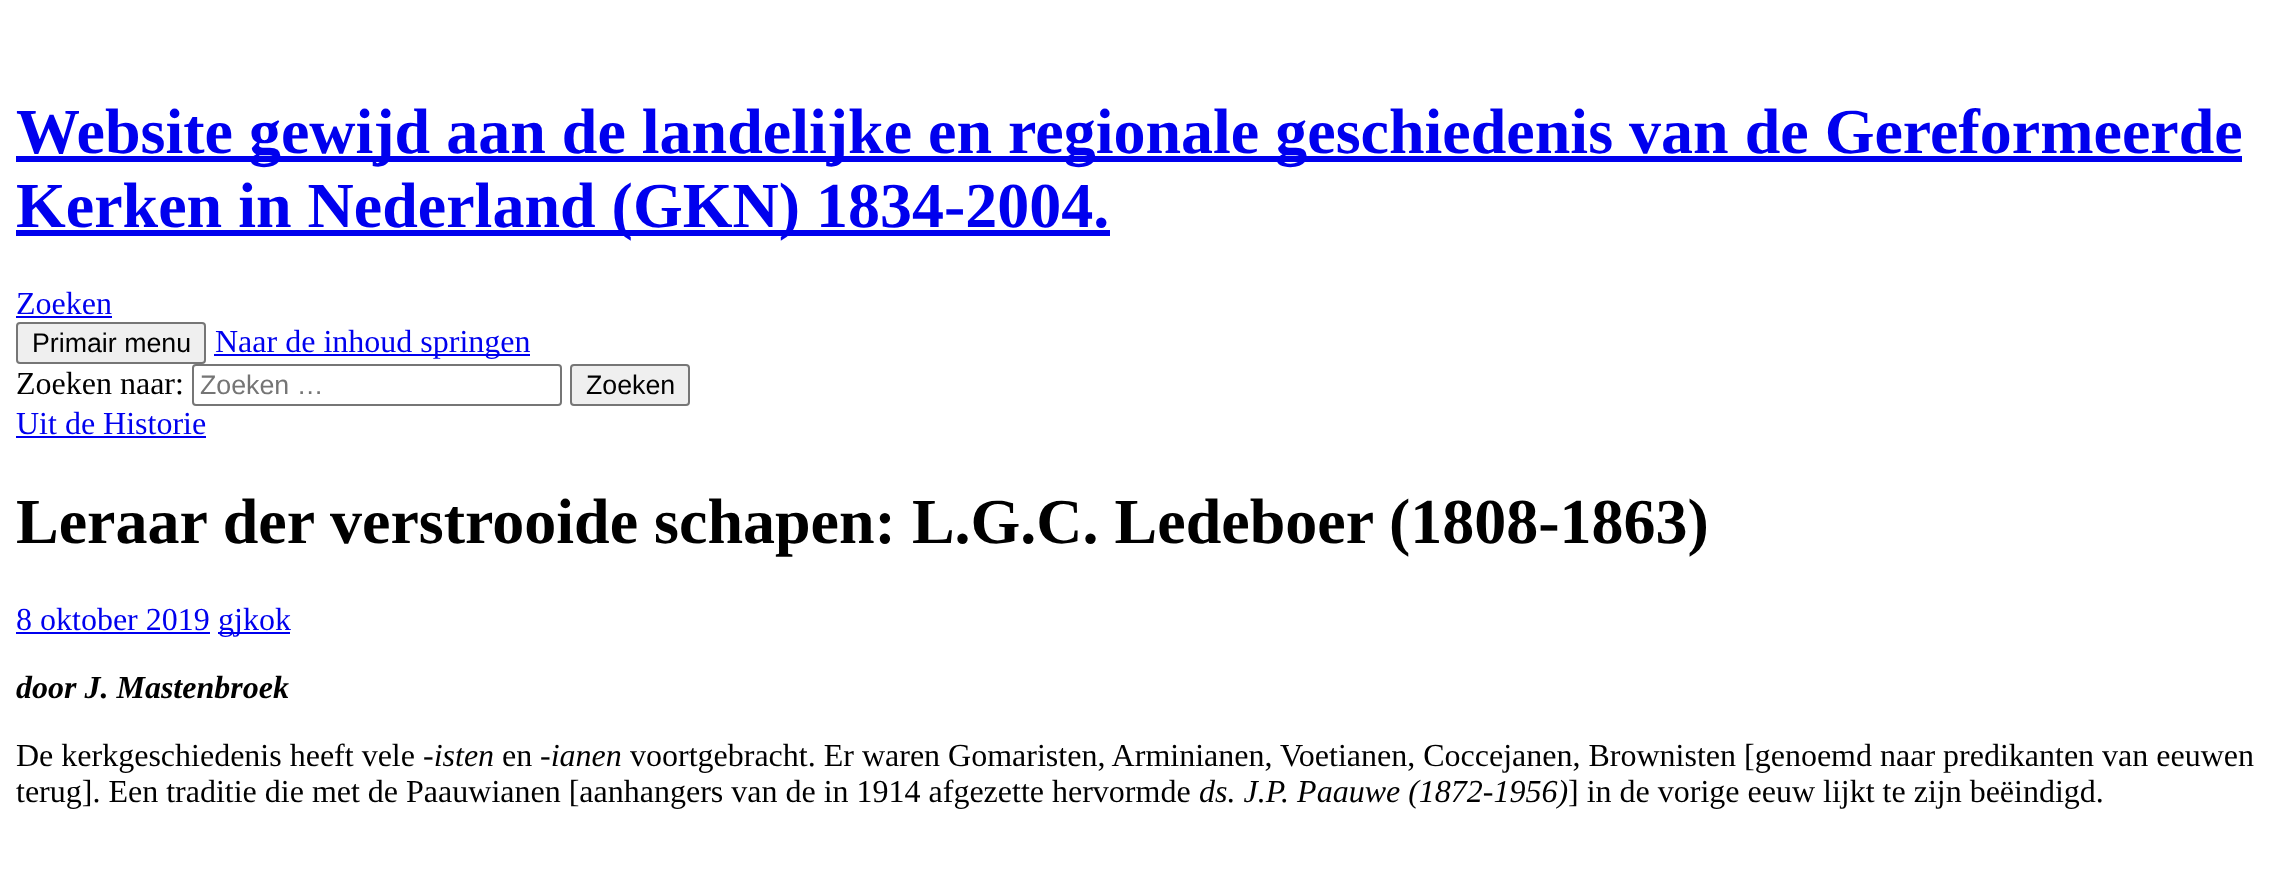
<svg xmlns="http://www.w3.org/2000/svg" width="2282" height="883" viewBox="0 0 2282 883">
  <rect width="100%" height="100%" fill="#ffffff"/>
  <rect x="16" y="156" width="2226" height="6" fill="#0000ee"/>
  <text x="16" y="153" font-family="Liberation Serif" font-size="64" font-weight="bold" fill="#0000ee">Website gewijd aan de landelijke en regionale geschiedenis van de Gereformeerde</text>
  <rect x="16" y="230" width="1094" height="6" fill="#0000ee"/>
  <text x="16" y="227" font-family="Liberation Serif" font-size="64" font-weight="bold" fill="#0000ee">Kerken in Nederland (GKN) 1834-2004.</text>
  <text x="16" y="314" font-family="Liberation Serif" font-size="32" fill="#0000ee">Zoeken</text>
  <rect x="16" y="316" width="96" height="2" fill="#0000ee"/>
  <rect x="17" y="323" width="188" height="40" rx="3" fill="#efefef" stroke="#767676" stroke-width="2"/>
  <text x="32" y="352" font-family="Liberation Sans" font-size="26.75" fill="#000000">Primair menu</text>
  <rect x="214" y="354" width="316" height="2" fill="#0000ee"/>
  <text x="215" y="352" font-family="Liberation Serif" font-size="32" fill="#0000ee">Naar de inhoud springen</text>
  <text x="16" y="394" font-family="Liberation Serif" font-size="32" fill="#000000">Zoeken naar:</text>
  <rect x="193" y="365" width="368" height="40" rx="3" fill="none" stroke="#767676" stroke-width="2"/>
  <text x="200" y="394" font-family="Liberation Sans" font-size="26.75" fill="#757575">Zoeken …</text>
  <rect x="571" y="365" width="118" height="40" rx="3" fill="#efefef" stroke="#767676" stroke-width="2"/>
  <text x="586" y="394" font-family="Liberation Sans" font-size="26.75" fill="#000000">Zoeken</text>
  <text x="16" y="434" font-family="Liberation Serif" font-size="32" fill="#0000ee">Uit de Historie</text>
  <rect x="16" y="436" width="190" height="2" fill="#0000ee"/>
  <text x="16" y="543" font-family="Liberation Serif" font-size="64" font-weight="bold" fill="#000000">Leraar der verstrooide schapen: L.G.C. Ledeboer (1808-1863)</text>
  <text x="16" y="630" font-family="Liberation Serif" font-size="32" fill="#0000ee">8 oktober 2019</text>
  <rect x="16" y="632" width="194" height="2" fill="#0000ee"/>
  <rect x="218" y="632" width="72" height="2" fill="#0000ee"/>
  <text x="218" y="630" font-family="Liberation Serif" font-size="32" fill="#0000ee">gjkok</text>
  <text x="16" y="698" font-family="Liberation Serif" font-size="32" font-weight="bold" font-style="italic" fill="#000000">door J. Mastenbroek</text>
  <text x="16" y="766" font-family="Liberation Serif" font-size="32" fill="#000000">De kerkgeschiedenis heeft vele</text>
  <text x="423" y="766" font-family="Liberation Serif" font-size="32" font-style="italic" fill="#000000">-isten</text>
  <text x="502" y="766" font-family="Liberation Serif" font-size="32" fill="#000000">en</text>
  <text x="540" y="766" font-family="Liberation Serif" font-size="32" font-style="italic" fill="#000000">-ianen</text>
  <text x="630" y="766" font-family="Liberation Serif" font-size="32" fill="#000000">voortgebracht. Er waren Gomaristen, Arminianen, Voetianen, Coccejanen, Brownisten [genoemd naar predikanten van eeuwen</text>
  <text x="16" y="802" font-family="Liberation Serif" font-size="32" fill="#000000">terug]. Een traditie die met de Paauwianen [aanhangers van de in 1914 afgezette hervormde</text>
  <text x="1199" y="802" font-family="Liberation Serif" font-size="32" font-style="italic" fill="#000000">ds. J.P. Paauwe (1872-1956)</text>
  <text x="1568" y="802" font-family="Liberation Serif" font-size="32" fill="#000000">] in de vorige eeuw lijkt te zijn beëindigd.</text>
</svg>
